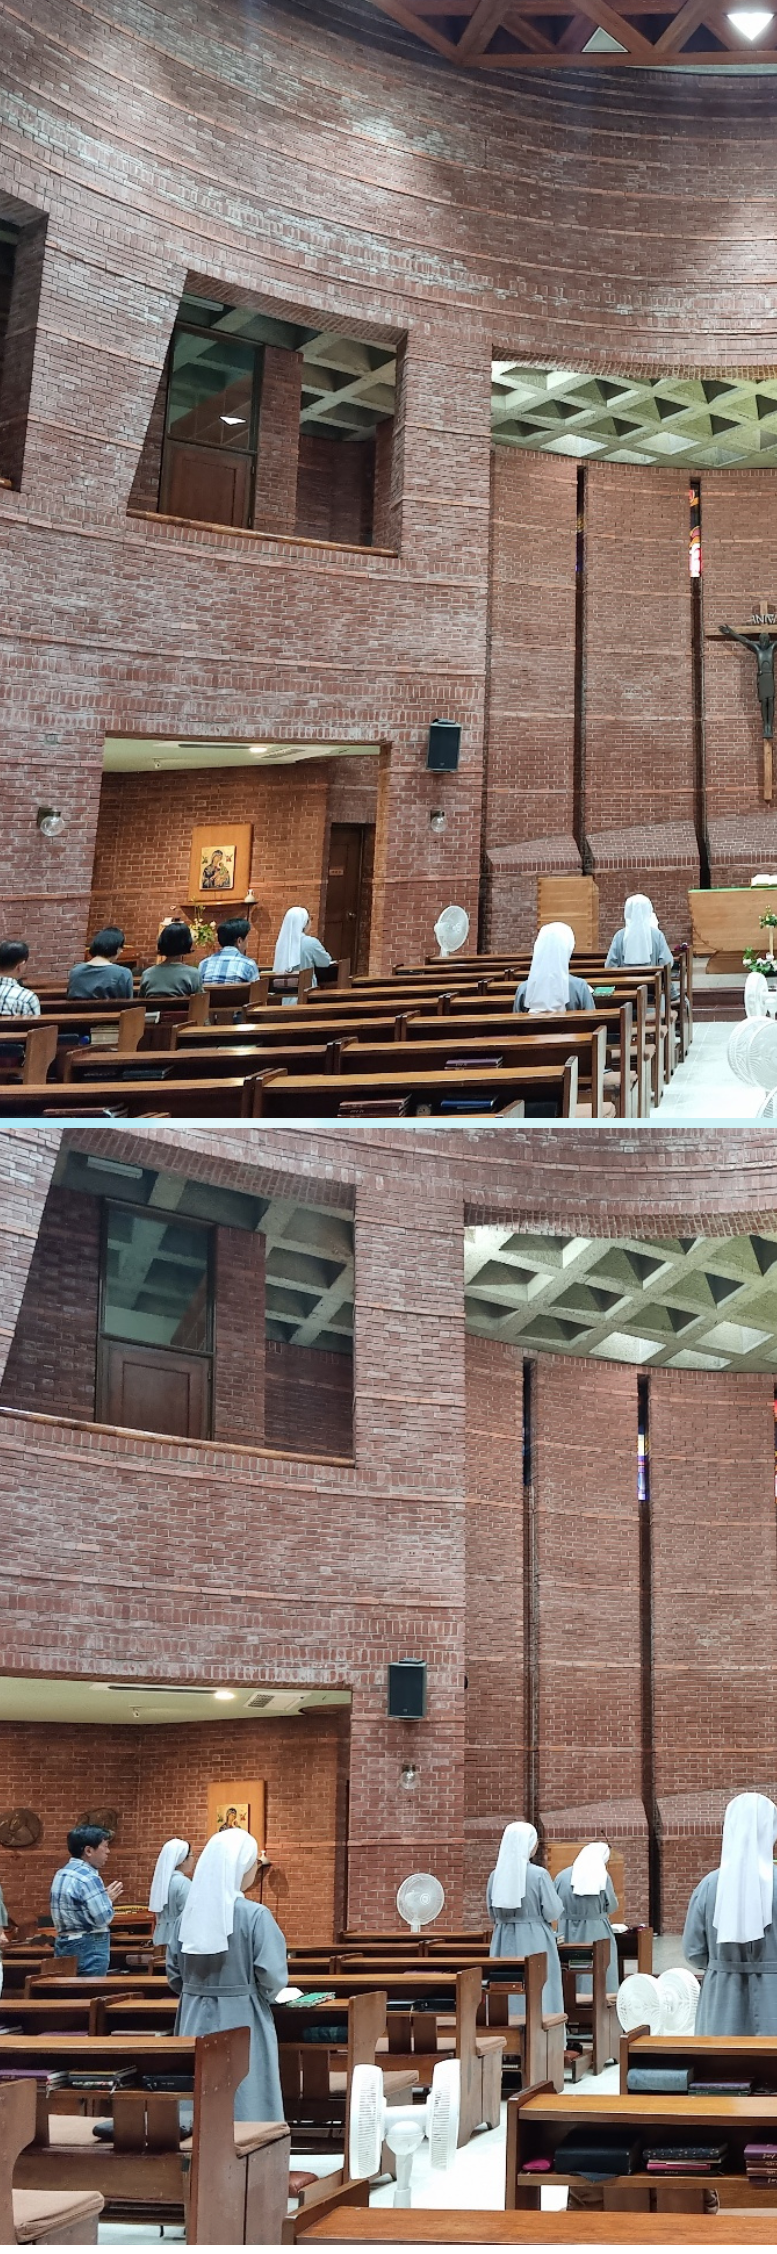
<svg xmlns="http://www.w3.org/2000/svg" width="777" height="2254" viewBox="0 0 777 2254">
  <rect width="100%" height="100%" fill="#ffffff"/>
  <image x="0" y="0" width="777" height="2245" href="img1.png"/>
</svg>
